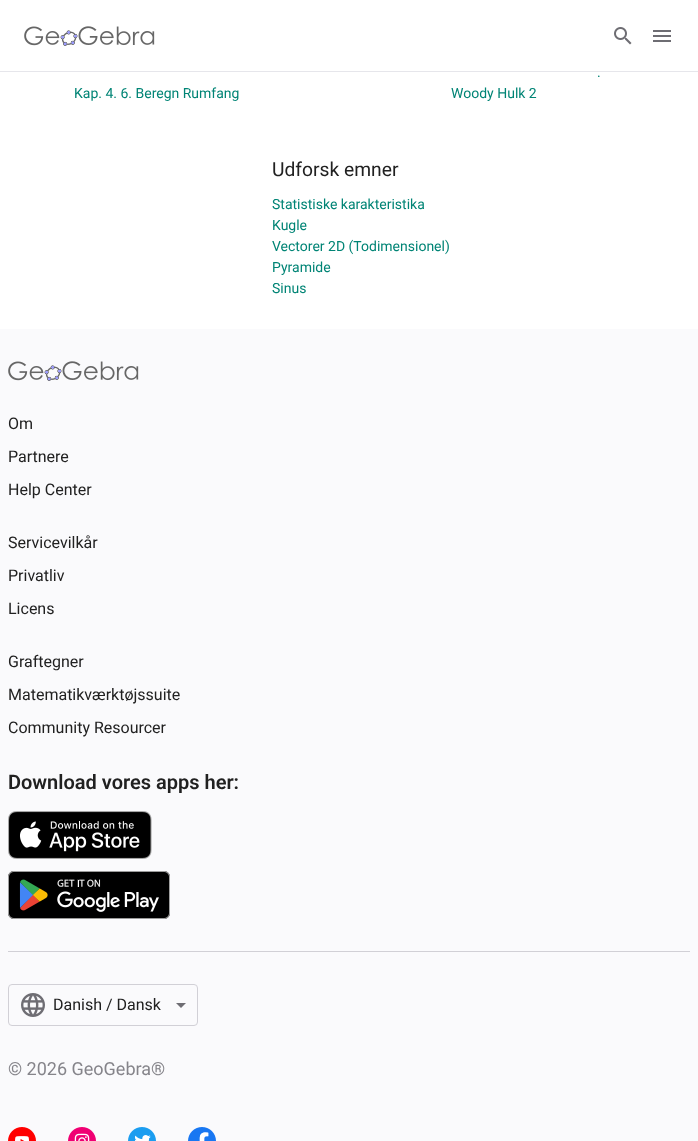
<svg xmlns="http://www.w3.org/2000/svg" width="698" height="1141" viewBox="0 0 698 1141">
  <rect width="100%" height="100%" fill="#ffffff"/>
  <rect x="0" y="71" width="698" height="1" fill="#e6e6eb"/>
  <image x="24" y="26" width="131" height="20" href="img1.png"/>
  <image x="614" y="27" width="18" height="18" href="img2.png"/>
  <image x="653" y="30" width="18" height="12" href="img3.png"/>
  <text x="74" y="98" font-family="Roboto" font-size="14" fill="#008475">Kap. 4. 6. Beregn Rumfang</text>
  <text x="597" y="77" font-family="Roboto" font-size="14" fill="#008475">.</text>
  <text x="451" y="98" font-family="Roboto" font-size="14" fill="#008475">Woody Hulk 2</text>
  <text x="272" y="176" font-family="Roboto" font-size="19.25" fill="#212121">Udforsk emner</text>
  <text x="272" y="209" font-family="Roboto" font-size="14" fill="#008475">Statistiske karakteristika</text>
  <text x="272" y="230" font-family="Roboto" font-size="14" fill="#008475">Kugle</text>
  <text x="272" y="251" font-family="Roboto" font-size="14" fill="#008475">Vectorer 2D (Todimensionel)</text>
  <text x="272" y="272" font-family="Roboto" font-size="14" fill="#008475">Pyramide</text>
  <text x="272" y="293" font-family="Roboto" font-size="14" fill="#008475">Sinus</text>
  <rect x="0" y="329" width="698" height="812" fill="#fafafc"/>
  <image x="8" y="361" width="131" height="20" href="img4.png"/>
  <text x="8" y="429" font-family="Roboto" font-size="16" fill="#212121">Om</text>
  <text x="8" y="462" font-family="Roboto" font-size="16" fill="#212121">Partnere</text>
  <text x="8" y="495" font-family="Roboto" font-size="16" fill="#212121">Help Center</text>
  <text x="8" y="548" font-family="Roboto" font-size="16" fill="#212121">Servicevilkår</text>
  <text x="8" y="581" font-family="Roboto" font-size="16" fill="#212121">Privatliv</text>
  <text x="8" y="614" font-family="Roboto" font-size="16" fill="#212121">Licens</text>
  <text x="8" y="667" font-family="Roboto" font-size="16" fill="#212121">Graftegner</text>
  <text x="8" y="700" font-family="Roboto" font-size="16" fill="#212121">Matematikværktøjssuite</text>
  <text x="8" y="733" font-family="Roboto" font-size="16" fill="#212121">Community Resourcer</text>
  <text x="8" y="789" font-family="Roboto" font-size="20" font-weight="600" fill="#212121">Download vores apps her:</text>
  <image x="8" y="811" width="144" height="48" href="img5.png"/>
  <image x="8" y="871" width="162" height="48" href="img6.png"/>
  <rect x="8" y="951" width="682" height="1" fill="#d1d0d6"/>
  <rect x="8.5" y="984.5" width="189" height="41" rx="3.5" fill="none" stroke="#d1d0d6"/>
  <image x="21" y="993" width="24" height="24" href="img7.png"/>
  <text x="53" y="1010" font-family="Roboto" font-size="16" fill="#212121">Danish / Dansk</text>
  <path d="M176 1003L181 1008L186 1003Z" fill="#6e6d73"/>
  <text x="8" y="1075" font-family="Roboto" font-size="18" fill="#85848a">© 2026 GeoGebra®</text>
  <image x="8" y="1127" width="28" height="14" href="img8.png"/>
  <image x="68" y="1127" width="28" height="14" href="img9.png"/>
  <image x="128" y="1127" width="28" height="14" href="img10.png"/>
  <image x="188" y="1127" width="28" height="14" href="img11.png"/>
</svg>
